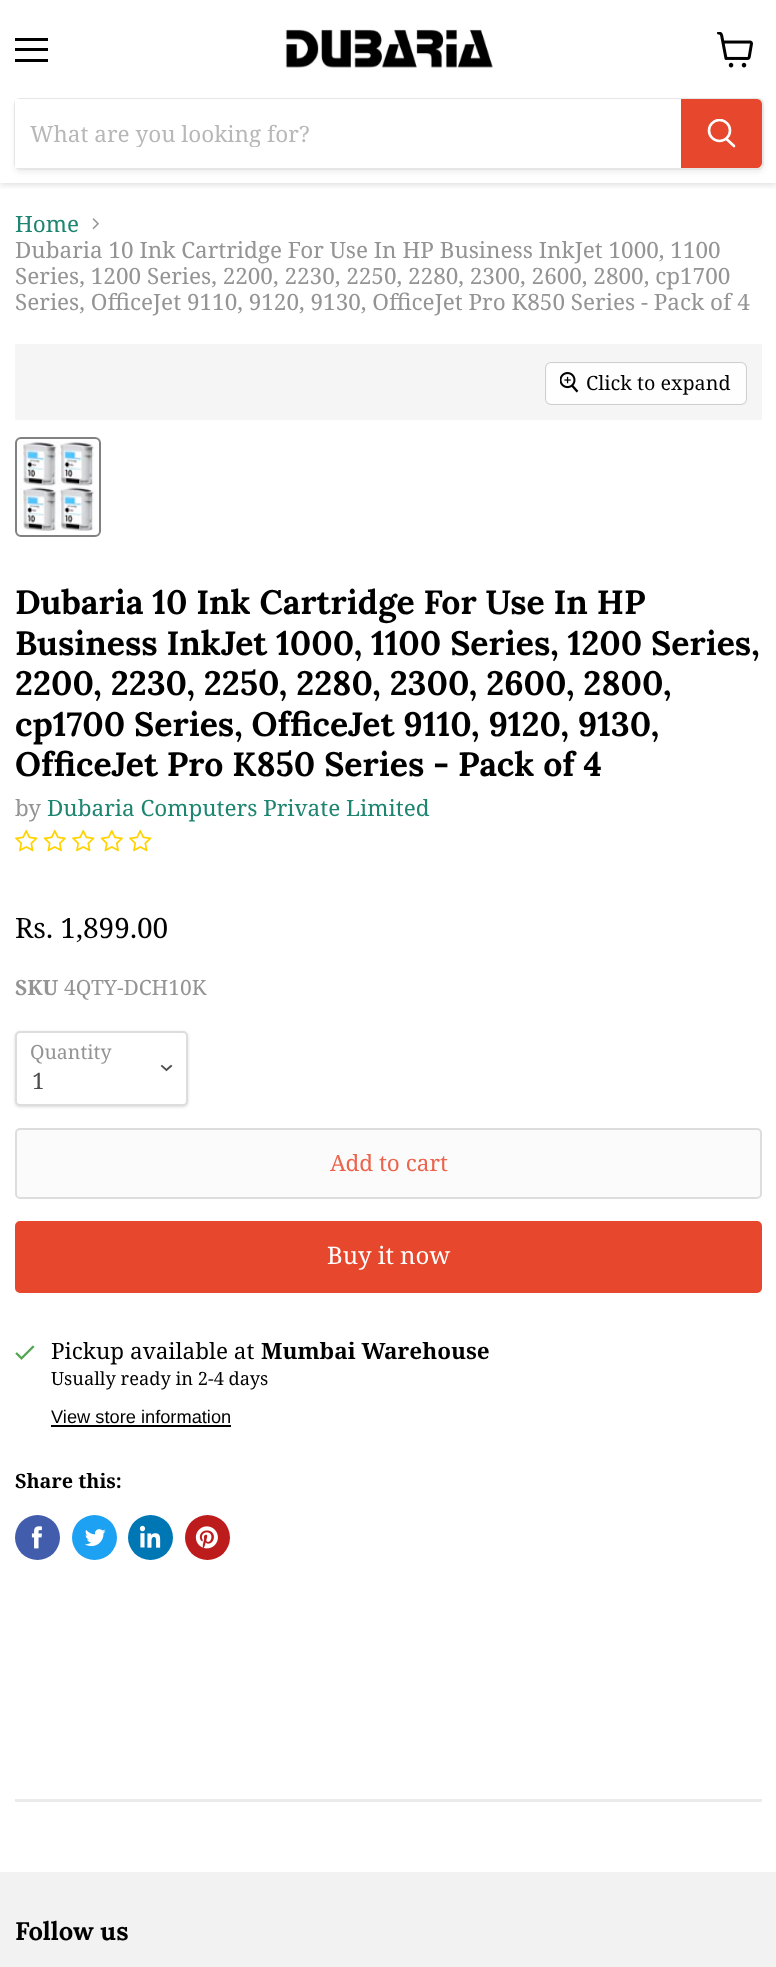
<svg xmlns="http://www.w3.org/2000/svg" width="776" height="1967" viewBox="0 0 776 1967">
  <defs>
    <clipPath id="clip1"><rect x="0" y="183" width="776" height="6"/></clipPath>
    <filter id="blur1" x="-50%" y="-200%" width="200%" height="500%"><feGaussianBlur stdDeviation="3"/></filter>
    <clipPath id="clip2"><path d="M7 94H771V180H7ZM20 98H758C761.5 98 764 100.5 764 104V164C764 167.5 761.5 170 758 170H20C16.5 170 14 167.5 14 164V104C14 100.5 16.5 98 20 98Z" clip-rule="evenodd"/></clipPath>
    <filter id="blur2" x="-50%" y="-200%" width="200%" height="500%"><feGaussianBlur stdDeviation="2"/></filter>
    <clipPath id="clip3"><rect x="30" y="117" width="636" height="30"/></clipPath>
    <clipPath id="clip4"><rect x="707" y="119" width="30" height="31"/></clipPath>
    <filter id="blur3" x="-50%" y="-200%" width="200%" height="500%"><feGaussianBlur stdDeviation="1.5"/></filter>
  </defs>
  <rect width="100%" height="100%" fill="#ffffff"/>
  <g clip-path="url(#clip1)">
    <rect x="0" y="2" width="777" height="183" fill="#808080" fill-opacity="0.25" filter="url(#blur1)"/>
  </g>
  <rect x="15" y="38" width="33" height="3" fill="#000000"/>
  <rect x="15" y="48" width="33" height="3" fill="#000000"/>
  <rect x="15" y="59" width="33" height="3" fill="#000000"/>
  <image x="717" y="32" width="36" height="36" href="img1.png"/>
  <image x="285" y="29" width="208" height="39" href="img2.png"/>
  <g clip-path="url(#clip2)">
    <rect x="14" y="101" width="750" height="72" rx="6" fill="#808080" fill-opacity="0.11" filter="url(#blur2)"/>
  </g>
  <rect x="15" y="99" width="748" height="70" rx="5" fill="none" stroke="#808080" stroke-opacity="0.2" stroke-width="2"/>
  <rect x="15" y="99" width="666" height="69" fill="#ffffff"/>
  <g clip-path="url(#clip3)">
    <text x="30" y="142" font-family="Noto Serif" font-size="22.5" fill="#b8b8b8">What are you looking for?</text>
  </g>
  <path d="M682 100H757C759 100 761 102 761 104V163C761 165 759 167 757 167H682Z" fill="#e7482d" stroke="#e7482d" stroke-width="2"/>
  <path d="M734 146L726.5 139" fill="none" stroke="#ffffff" stroke-width="2.6" stroke-linecap="round"/>
  <g clip-path="url(#clip4)">
    <circle cx="719.5" cy="130.5" r="10.5" fill="none" stroke="#ffffff" stroke-width="2.6"/>
  </g>
  <text x="15" y="232" font-family="Noto Serif" font-size="22.5" fill="#1e8570">Home</text>
  <image x="92" y="218" width="7" height="12" href="img3.png"/>
  <text x="15" y="258" font-family="Noto Serif" font-size="22.5" fill="#949494">Dubaria 10 Ink Cartridge For Use In HP Business InkJet 1000, 1100</text>
  <text x="15" y="284" font-family="Noto Serif" font-size="22.5" fill="#949494">Series, 1200 Series, 2200, 2230, 2250, 2280, 2300, 2600, 2800, cp1700</text>
  <text x="15" y="310" font-family="Noto Serif" font-size="22.5" fill="#949494">Series, OfficeJet 9110, 9120, 9130, OfficeJet Pro K850 Series - Pack of 4</text>
  <rect x="15" y="344" width="747" height="76" fill="#f5f5f5"/>
  <rect x="546" y="363" width="200" height="41" rx="5" fill="none" stroke="#d0d0d0" stroke-width="2"/>
  <rect x="546" y="363" width="200" height="41" rx="5" fill="#ffffff" fill-opacity="0.9"/>
  <image x="560" y="372" width="19" height="21" href="img4.png"/>
  <text x="586" y="390" font-family="Noto Serif" font-size="19.75" fill="#000000">Click to expand</text>
  <rect x="16" y="438" width="84" height="98" rx="5" fill="none" stroke="#818181" stroke-width="2"/>
  <image x="19" y="441" width="75" height="90" href="img5.png"/>
  <text x="15" y="614" font-family="Lora" font-size="33.75" font-weight="bold" fill="#000000">Dubaria 10 Ink Cartridge For Use In HP</text>
  <text x="15" y="655" font-family="Lora" font-size="33.75" font-weight="bold" fill="#000000">Business InkJet 1000, 1100 Series, 1200 Series,</text>
  <text x="15" y="695" font-family="Lora" font-size="33.75" font-weight="bold" fill="#000000">2200, 2230, 2250, 2280, 2300, 2600, 2800,</text>
  <text x="15" y="736" font-family="Lora" font-size="33.75" font-weight="bold" fill="#000000">cp1700 Series, OfficeJet 9110, 9120, 9130,</text>
  <text x="15" y="776" font-family="Lora" font-size="33.75" font-weight="bold" fill="#000000">OfficeJet Pro K850 Series - Pack of 4</text>
  <text x="15" y="816" font-family="Noto Serif" font-size="22.5" fill="#949494">by</text>
  <text x="47" y="816" font-family="Noto Serif" font-size="22.5" fill="#1e8570">Dubaria Computers Private Limited</text>
  <image x="15" y="829" width="23" height="23" href="img6.png"/>
  <image x="43" y="829" width="23" height="23" href="img7.png"/>
  <image x="72" y="829" width="23" height="23" href="img6.png"/>
  <image x="100" y="829" width="23" height="23" href="img7.png"/>
  <image x="129" y="829" width="23" height="23" href="img6.png"/>
  <text x="15" y="938" font-family="Noto Serif" font-size="28" fill="#000000">Rs. 1,899.00</text>
  <text x="15" y="995" font-family="Noto Serif" font-size="21" font-weight="bold" fill="#949494">SKU</text>
  <text x="64" y="995" font-family="Noto Serif" font-size="21" fill="#949494">4QTY-DCH10K</text>
  <rect x="15" y="1032" width="173" height="75" rx="5" fill="#000000" fill-opacity="0.15" filter="url(#blur3)"/>
  <rect x="16" y="1032" width="171" height="73" rx="4" fill="#ffffff" stroke="#dddddd" stroke-width="2"/>
  <text x="30" y="1059" font-family="Noto Serif" font-size="19.5" fill="#949494">Quantity</text>
  <path d="M166.5 1070L171 1066M166.5 1070L162 1066" fill="none" stroke="#4d4d4d" stroke-width="1.9" stroke-linecap="square"/>
  <text x="32" y="1089" font-family="Noto Serif" font-size="22.5" fill="#4d4d4d">1</text>
  <rect x="16" y="1129" width="745" height="69" rx="4" fill="#fbfbfb" stroke="#dddddd" stroke-width="2"/>
  <text x="330" y="1171" font-family="Noto Serif" font-size="22.5" fill="#eb644d">Add to cart</text>
  <rect x="16" y="1222" width="745" height="70" rx="4" fill="#e7482d" stroke="#e7482d" stroke-width="2"/>
  <text x="327" y="1264" font-family="Noto Serif" font-size="24" fill="#ffffff">Buy it now</text>
  <image x="15" y="1345" width="20" height="15" href="img8.png"/>
  <text x="51" y="1359" font-family="Noto Serif" font-size="22.5" fill="#000000">Pickup available at</text>
  <text x="261" y="1359" font-family="Noto Serif" font-size="22.5" font-weight="bold" fill="#000000">Mumbai Warehouse</text>
  <text x="51" y="1385" font-family="Noto Serif" font-size="18.25" fill="#000000">Usually ready in 2-4 days</text>
  <text x="51" y="1423" font-family="Liberation Sans" font-size="18.25" fill="#000000">View store information</text>
  <rect x="51" y="1425" width="180" height="2" fill="#000000"/>
  <text x="15" y="1488" font-family="Noto Serif" font-size="19.75" font-weight="bold" fill="#000000">Share this:</text>
  <circle cx="37.5" cy="1537.5" r="22.5" fill="#425dab"/>
  <image x="31" y="1526" width="11" height="23" href="img9.png"/>
  <circle cx="94.5" cy="1537.5" r="22.5" fill="#1da1f2"/>
  <image x="85" y="1529" width="21" height="18" href="img10.png"/>
  <circle cx="150.5" cy="1537.5" r="22.5" fill="#0077b5"/>
  <image x="139" y="1525" width="22" height="23" href="img11.png"/>
  <circle cx="207.5" cy="1537.5" r="22.5" fill="#bd1c1c"/>
  <image x="195" y="1526" width="23" height="23" href="img12.png"/>
  <rect x="15" y="1799" width="747" height="3" fill="#808080" fill-opacity="0.16"/>
  <rect x="0" y="1872" width="776" height="95" fill="#f3f2f2"/>
  <text x="15" y="1940" font-family="Lora" font-size="25.5" font-weight="bold" fill="#000000">Follow us</text>
</svg>
